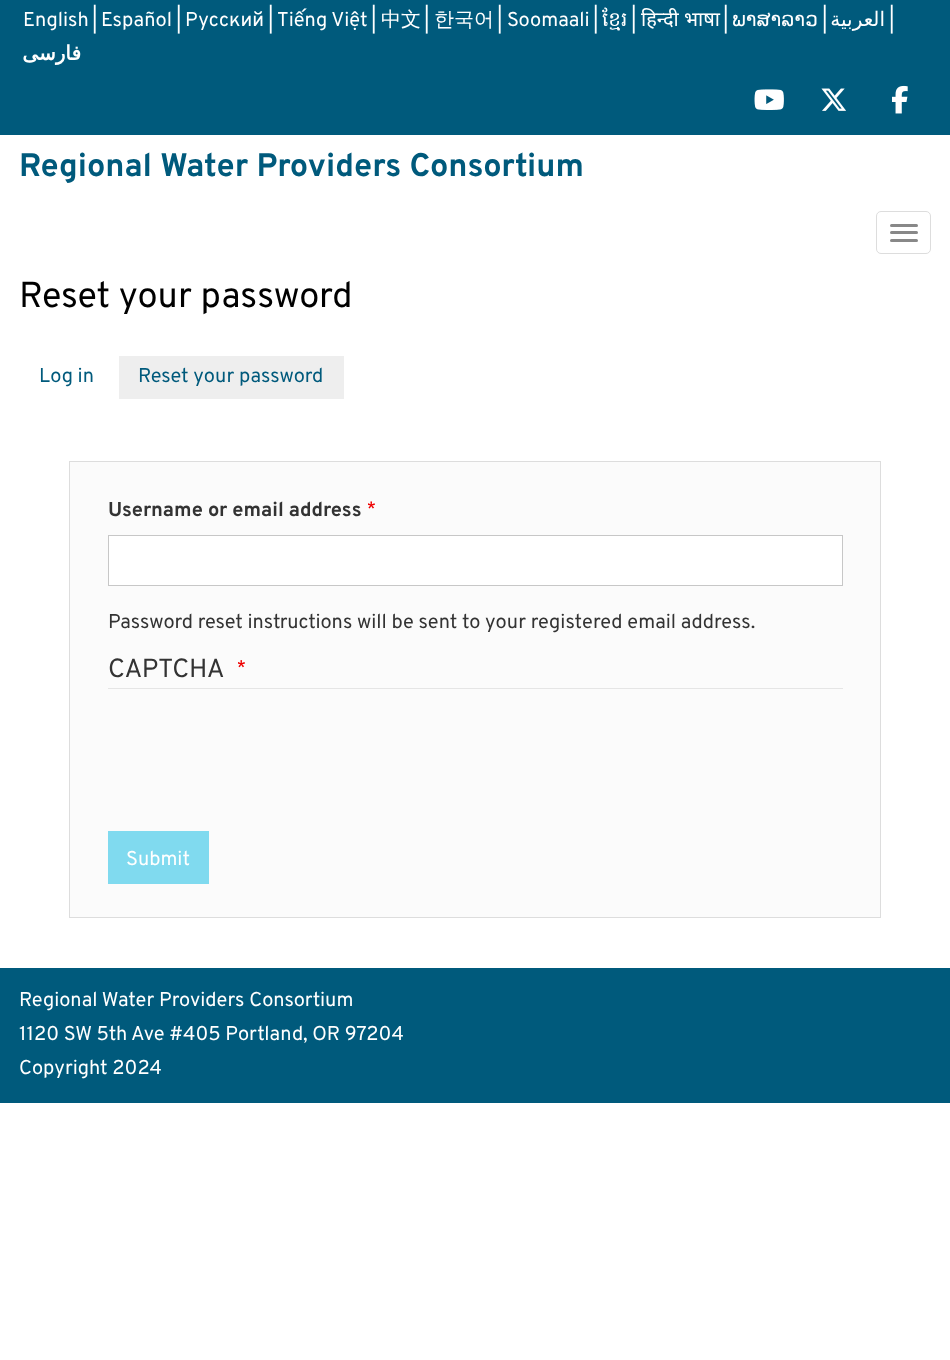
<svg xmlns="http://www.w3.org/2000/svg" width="950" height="1360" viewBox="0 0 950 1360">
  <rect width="100%" height="100%" fill="#ffffff"/>
  <rect x="0" y="0" width="950" height="135" fill="#005a7c"/>
  <text x="23" y="26" font-family="Overpass" font-size="20" fill="#ffffff">English</text>
  <text x="92" y="26" font-family="Overpass" font-size="20" fill="#ffffff">|</text>
  <text x="101" y="26" font-family="Overpass" font-size="20" fill="#ffffff">Español</text>
  <text x="176" y="26" font-family="Overpass" font-size="20" fill="#ffffff">|</text>
  <text x="185" y="26" font-family="Overpass" font-size="20" fill="#ffffff">Русский</text>
  <text x="268" y="26" font-family="Overpass" font-size="20" fill="#ffffff">|</text>
  <text x="277" y="26" font-family="Overpass" font-size="20" fill="#ffffff">Tiếng Việt</text>
  <text x="371" y="26" font-family="Overpass" font-size="20" fill="#ffffff">|</text>
  <text x="381" y="26" font-family="WenQuanYi Zen Hei" font-size="20" font-weight="500" fill="#ffffff">中文</text>
  <text x="424" y="26" font-family="Overpass" font-size="20" fill="#ffffff">|</text>
  <text x="434" y="26" font-family="WenQuanYi Zen Hei" font-size="20" font-weight="500" fill="#ffffff">한국어</text>
  <text x="497" y="26" font-family="Overpass" font-size="20" fill="#ffffff">|</text>
  <text x="507" y="26" font-family="Overpass" font-size="20" fill="#ffffff">Soomaali</text>
  <text x="593" y="26" font-family="Overpass" font-size="20" fill="#ffffff">|</text>
  <text x="602" y="26" font-family="Hanuman" font-size="20" fill="#ffffff">ខ្មែរ</text>
  <text x="631" y="26" font-family="Overpass" font-size="20" fill="#ffffff">|</text>
  <text x="641" y="26" font-family="Noto Sans" font-size="20" fill="#ffffff">हिन्दी भाषा</text>
  <text x="723" y="26" font-family="Overpass" font-size="20" fill="#ffffff">|</text>
  <text x="732" y="26" font-family="DejaVu Sans" font-size="20" fill="#ffffff">ພາສາລາວ</text>
  <text x="822" y="26" font-family="Overpass" font-size="20" fill="#ffffff">|</text>
  <text x="885" y="26" font-family="DejaVu Sans" font-size="20" direction="rtl" fill="#ffffff">العربية</text>
  <text x="889" y="26" font-family="Overpass" font-size="20" fill="#ffffff">|</text>
  <text x="81" y="60" font-family="DejaVu Sans" font-size="20" font-weight="bold" direction="rtl" fill="#ffffff">فارسی</text>
  <image x="754" y="89" width="30" height="21" href="img1.png"/>
  <image x="821" y="88" width="25" height="23" href="img2.png"/>
  <image x="892" y="85" width="16" height="29" href="img3.png"/>
  <text x="19" y="176" font-family="Overpass" font-size="32.5" font-weight="bold" fill="#005a7c">Regional Water Providers Consortium</text>
  <rect x="876.5" y="211.5" width="54" height="42" rx="4.5" fill="none" stroke="#dddddd"/>
  <rect x="890" y="224" width="28" height="3" rx="1.5" fill="#888888"/>
  <rect x="890" y="231" width="28" height="3" rx="1.5" fill="#888888"/>
  <rect x="890" y="239" width="28" height="3" rx="1.5" fill="#888888"/>
  <text x="19" y="307" font-family="Overpass" font-size="36" fill="#000000">Reset your password</text>
  <text x="39" y="382" font-family="Overpass" font-size="20" fill="#005a7c">Log in</text>
  <rect x="119" y="356" width="225" height="43" fill="#eeeeee"/>
  <text x="138" y="382" font-family="Overpass" font-size="20" fill="#005a7c">Reset your password</text>
  <rect x="69.5" y="461.5" width="811" height="456" fill="#fbfbfb" stroke="#dddddd"/>
  <text x="108" y="516" font-family="Overpass" font-size="20" font-weight="bold" fill="#333333">Username or email address</text>
  <image x="368" y="501" width="7" height="8" href="img4.png"/>
  <rect x="108.5" y="535.5" width="734" height="50" fill="#ffffff" stroke="#c7c7c7"/>
  <text x="108" y="628" font-family="Overpass" font-size="20" fill="#333333">Password reset instructions will be sent to your registered email address.</text>
  <rect x="108" y="688" width="735" height="1" fill="#e5e5e5"/>
  <text x="108" y="677" font-family="Overpass" font-size="26.25" fill="#333333">CAPTCHA</text>
  <image x="238" y="660" width="7" height="8" href="img5.png"/>
  <rect x="108" y="831" width="101" height="53" fill="#80daef"/>
  <text x="126" y="865" font-family="Overpass" font-size="20" fill="#ffffff">Submit</text>
  <rect x="0" y="968" width="950" height="135" fill="#005a7c"/>
  <text x="19" y="1006" font-family="Overpass" font-size="20" fill="#ffffff">Regional Water Providers Consortium</text>
  <text x="19" y="1040" font-family="Overpass" font-size="20" fill="#ffffff">1120 SW 5th Ave #405 Portland, OR 97204</text>
  <text x="19" y="1074" font-family="Overpass" font-size="20" fill="#ffffff">Copyright 2024</text>
</svg>
